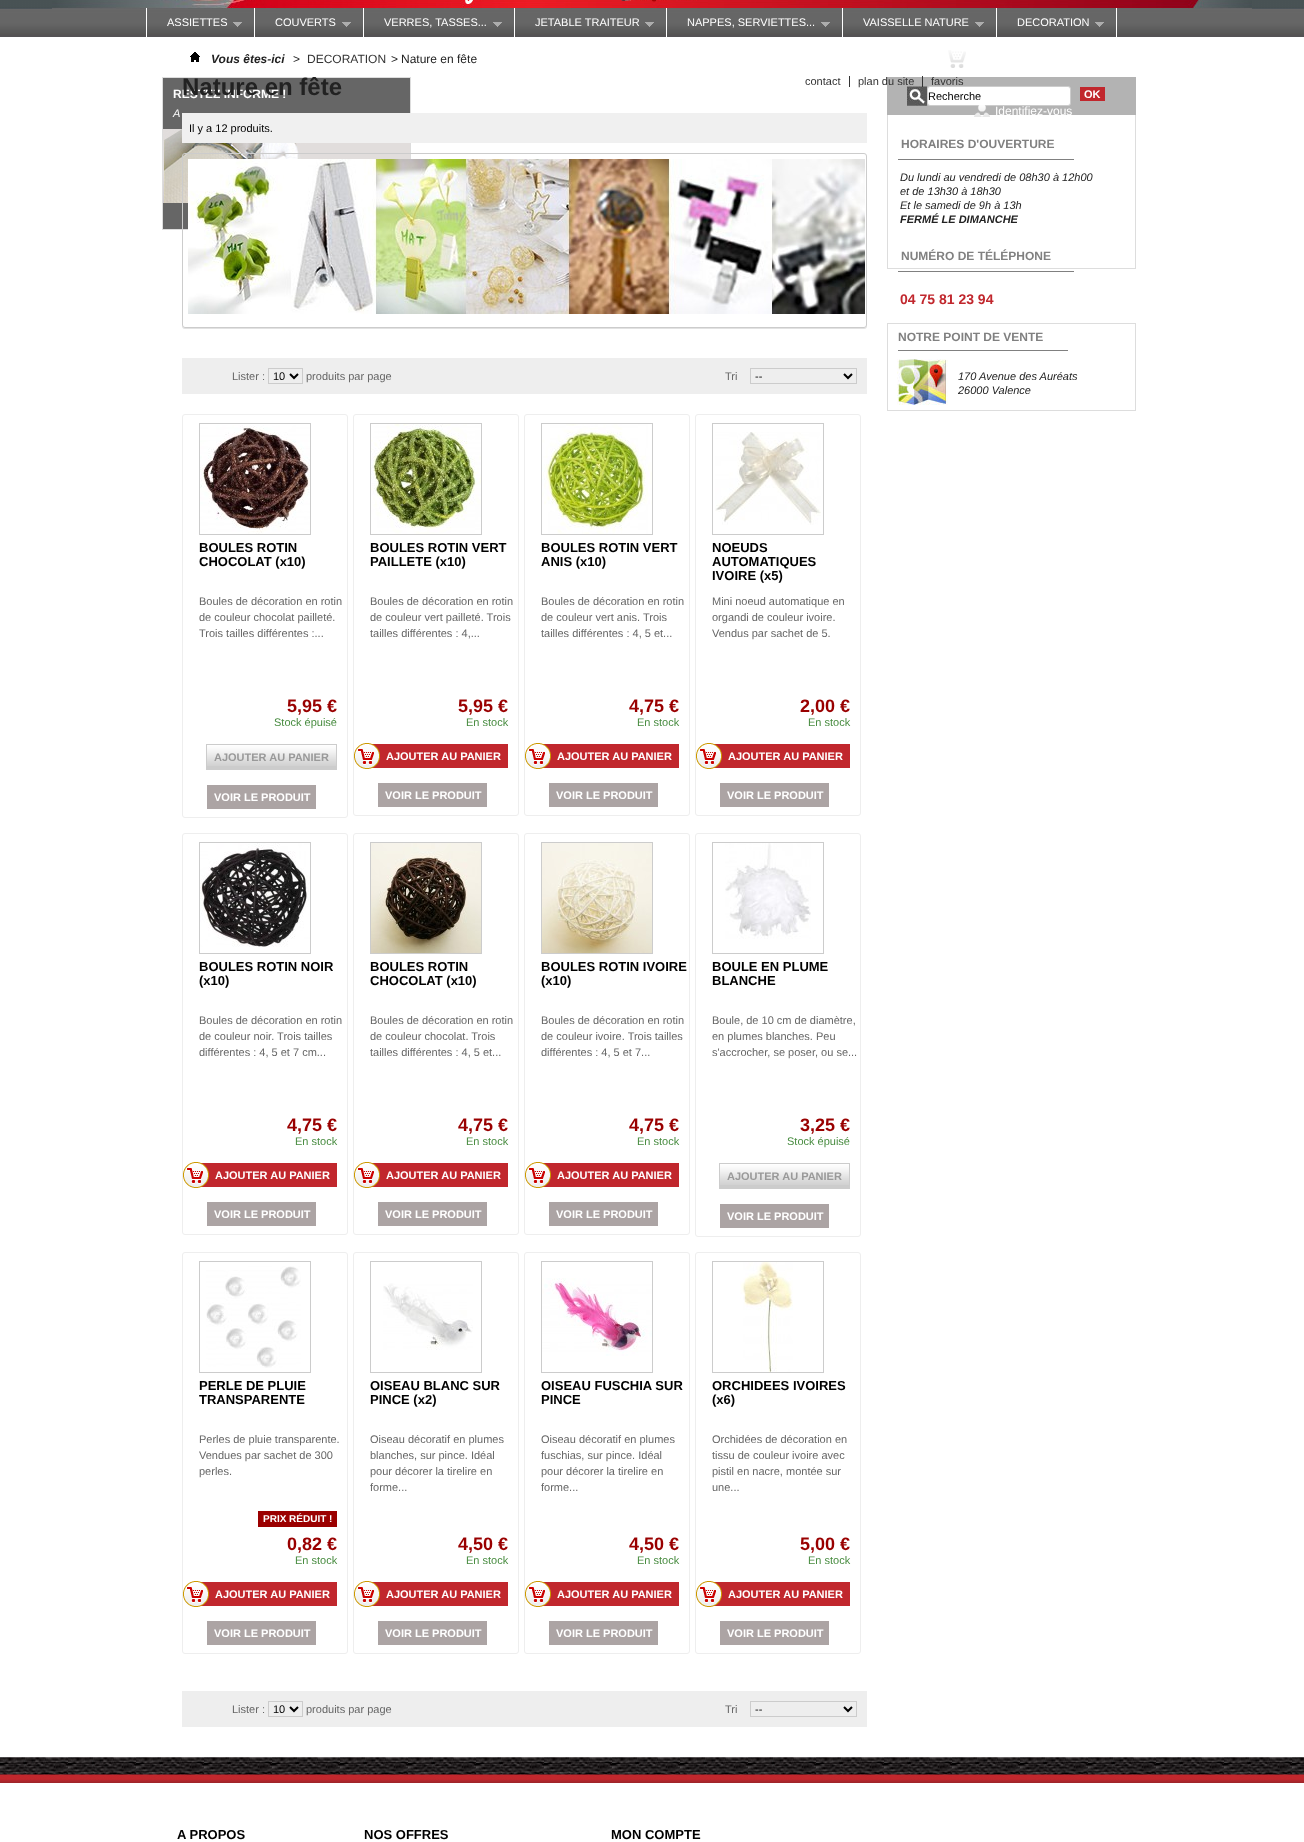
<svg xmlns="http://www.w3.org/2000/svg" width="1304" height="1842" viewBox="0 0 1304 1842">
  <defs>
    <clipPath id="clip1"><path d="M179 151H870V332H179ZM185 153H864C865.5 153 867 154.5 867 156V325C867 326.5 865.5 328 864 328H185C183.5 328 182 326.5 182 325V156C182 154.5 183.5 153 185 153Z" clip-rule="evenodd"/></clipPath>
    <filter id="blur1" x="-50%" y="-200%" width="200%" height="500%"><feGaussianBlur stdDeviation="0.5"/></filter>
  </defs>
  <rect width="100%" height="100%" fill="#ffffff"/>
  <image x="0" y="0" width="1304" height="37" href="img1.png"/>
  <image x="52" y="0" width="1200" height="9" href="img2.png"/>
  <image x="160" y="0" width="132" height="8" href="img3.png"/>
  <rect x="254" y="8" width="1" height="29" fill="#ffffff"/>
  <rect x="146" y="8" width="1" height="29" fill="#ffffff"/>
  <text x="167" y="26" font-family="Liberation Sans" font-size="11" fill="#ffffff">ASSIETTES</text>
  <image x="233" y="22" width="9" height="5" href="img4.png"/>
  <rect x="363" y="8" width="1" height="29" fill="#ffffff"/>
  <text x="275" y="26" font-family="Liberation Sans" font-size="11" fill="#ffffff">COUVERTS</text>
  <image x="342" y="22" width="9" height="5" href="img4.png"/>
  <rect x="514" y="8" width="1" height="29" fill="#ffffff"/>
  <text x="384" y="26" font-family="Liberation Sans" font-size="11" fill="#ffffff">VERRES, TASSES...</text>
  <image x="493" y="22" width="9" height="5" href="img4.png"/>
  <rect x="666" y="8" width="1" height="29" fill="#ffffff"/>
  <text x="535" y="26" font-family="Liberation Sans" font-size="11" fill="#ffffff">JETABLE TRAITEUR</text>
  <image x="645" y="22" width="9" height="5" href="img4.png"/>
  <rect x="842" y="8" width="1" height="29" fill="#ffffff"/>
  <text x="687" y="26" font-family="Liberation Sans" font-size="11" fill="#ffffff">NAPPES, SERVIETTES...</text>
  <image x="821" y="22" width="9" height="5" href="img4.png"/>
  <rect x="996" y="8" width="1" height="29" fill="#ffffff"/>
  <text x="863" y="26" font-family="Liberation Sans" font-size="11" fill="#ffffff">VAISSELLE NATURE</text>
  <image x="975" y="22" width="9" height="5" href="img4.png"/>
  <rect x="1116" y="8" width="1" height="29" fill="#ffffff"/>
  <text x="1017" y="26" font-family="Liberation Sans" font-size="11" fill="#ffffff">DECORATION</text>
  <image x="1095" y="22" width="9" height="5" href="img4.png"/>
  <text x="805" y="85" font-family="Liberation Sans" font-size="11" fill="#333333">contact</text>
  <rect x="849" y="76" width="1" height="11" fill="#333333"/>
  <rect x="887.5" y="77.5" width="248" height="191" fill="none" stroke="#dddddd"/>
  <rect x="887" y="77" width="249" height="38" fill="#b3b3b3"/>
  <image x="907" y="86" width="20" height="20" href="img24.png"/>
  <text x="858" y="85" font-family="Liberation Sans" font-size="11" fill="#333333">plan du site</text>
  <rect x="922" y="76" width="1" height="11" fill="#333333"/>
  <text x="931" y="85" font-family="Liberation Sans" font-size="11" fill="#333333">favoris</text>
  <image x="948" y="50" width="18" height="18" href="img5.png"/>
  <rect x="927.5" y="86.5" width="143" height="19" rx="2.5" fill="#ffffff" stroke="#cccccc"/>
  <image x="974" y="105" width="16" height="12" href="img6.png"/>
  <text x="995" y="115" font-family="Liberation Sans" font-size="12" fill="#ffffff">Identifiez-vous</text>
  <image x="190" y="52" width="10" height="10" href="img7.png"/>
  <text x="211" y="63" font-family="Liberation Sans" font-size="12" font-weight="bold" font-style="italic" fill="#222222">Vous êtes-ici</text>
  <text x="293" y="63" font-family="Liberation Sans" font-size="12" fill="#222222">&gt;</text>
  <text x="307" y="63" font-family="Liberation Sans" font-size="12" fill="#333333">DECORATION</text>
  <text x="391" y="63" font-family="Liberation Sans" font-size="12" fill="#222222">&gt;</text>
  <text x="401" y="63" font-family="Liberation Sans" font-size="12" fill="#222222">Nature en fête</text>
  <rect x="162.5" y="77.5" width="248" height="152" fill="#666666" stroke="#dddddd"/>
  <text x="173" y="98" font-family="Liberation Sans" font-size="12" font-weight="bold" fill="#ffffff">RESTEZ INFORMÉ !</text>
  <text x="182" y="95" font-family="Liberation Sans" font-size="24" font-weight="bold" fill="#222222">Nature en fête</text>
  <image x="163" y="129" width="247" height="74" href="img23.png"/>
  <rect x="182" y="113" width="685" height="30" fill="#f0f0f0"/>
  <text x="189" y="132" font-family="Liberation Sans" font-size="11" fill="#000000">Il y a 12 produits.</text>
  <g clip-path="url(#clip1)">
    <rect x="182" y="154" width="685" height="175" rx="3" fill="#e2e2e2" filter="url(#blur1)"/>
  </g>
  <rect x="182.5" y="153.5" width="684" height="174" rx="2.5" fill="none" stroke="#cccccc"/>
  <image x="188" y="159" width="677" height="155" href="img8.png"/>
  <rect x="182" y="358" width="685" height="36" fill="#eeeeee"/>
  <text x="232" y="380" font-family="Liberation Sans" font-size="11" fill="#666666">Lister :</text>
  <rect x="268.5" y="368.5" width="34" height="15" fill="none" stroke="#cccccc"/>
  <path d="M290 374L294 378L298 374" fill="none" stroke="#000000" stroke-width="2"/>
  <text x="273" y="380" font-family="Liberation Sans" font-size="11" fill="#000000">10</text>
  <text x="306" y="380" font-family="Liberation Sans" font-size="11" fill="#666666">produits par page</text>
  <text x="725" y="380" font-family="Liberation Sans" font-size="11" fill="#666666">Tri</text>
  <rect x="750.5" y="368.5" width="106" height="15" fill="none" stroke="#cccccc"/>
  <path d="M844 374L848 378L852 374" fill="none" stroke="#000000" stroke-width="2"/>
  <text x="755" y="380" font-family="Liberation Sans" font-size="11" fill="#000000">--</text>
  <rect x="182.5" y="414.5" width="165" height="403" rx="2.5" fill="none" stroke="#eeeeee"/>
  <rect x="199.5" y="423.5" width="111" height="111" fill="none" stroke="#cccccc"/>
  <image x="200" y="425" width="110" height="109" href="img9.png"/>
  <text x="199" y="552" font-family="Liberation Sans" font-size="13" font-weight="bold" fill="#000000">BOULES ROTIN</text>
  <text x="199" y="566" font-family="Liberation Sans" font-size="13" font-weight="bold" fill="#000000">CHOCOLAT (x10)</text>
  <text x="199" y="605" font-family="Liberation Sans" font-size="11" fill="#666666">Boules de décoration en rotin</text>
  <text x="199" y="621" font-family="Liberation Sans" font-size="11" fill="#666666">de couleur chocolat pailleté.</text>
  <text x="199" y="637" font-family="Liberation Sans" font-size="11" fill="#666666">Trois tailles différentes :...</text>
  <text x="287" y="712" font-family="Liberation Sans" font-size="18" font-weight="bold" fill="#990000">5,95 €</text>
  <text x="274" y="726" font-family="Liberation Sans" font-size="11" fill="#488c40">Stock épuisé</text>
  <rect x="207" y="766" width="129" height="3" fill="#cccccc"/>
  <image x="207" y="745" width="129" height="21" href="img10.png"/>
  <rect x="206.5" y="744.5" width="130" height="25" fill="none" stroke="#cccccc"/>
  <text x="214" y="761" font-family="Liberation Sans" font-size="11" font-weight="bold" fill="#999999">AJOUTER AU PANIER</text>
  <rect x="207" y="785" width="109" height="24" fill="#aca4a4"/>
  <text x="214" y="801" font-family="Liberation Sans" font-size="11" font-weight="bold" fill="#ffffff">VOIR LE PRODUIT</text>
  <rect x="353.5" y="414.5" width="165" height="401" rx="2.5" fill="none" stroke="#eeeeee"/>
  <rect x="370.5" y="423.5" width="111" height="111" fill="none" stroke="#cccccc"/>
  <image x="371" y="424" width="110" height="110" href="img11.png"/>
  <text x="370" y="552" font-family="Liberation Sans" font-size="13" font-weight="bold" fill="#000000">BOULES ROTIN VERT</text>
  <text x="370" y="566" font-family="Liberation Sans" font-size="13" font-weight="bold" fill="#000000">PAILLETE (x10)</text>
  <text x="370" y="605" font-family="Liberation Sans" font-size="11" fill="#666666">Boules de décoration en rotin</text>
  <text x="370" y="621" font-family="Liberation Sans" font-size="11" fill="#666666">de couleur vert pailleté. Trois</text>
  <text x="370" y="637" font-family="Liberation Sans" font-size="11" fill="#666666">tailles différentes : 4,...</text>
  <text x="458" y="712" font-family="Liberation Sans" font-size="18" font-weight="bold" fill="#990000">5,95 €</text>
  <text x="466" y="726" font-family="Liberation Sans" font-size="11" fill="#488c40">En stock</text>
  <rect x="372" y="744" width="136" height="24" fill="#c1272d"/>
  <image x="354" y="743" width="26" height="26" href="img12.png"/>
  <text x="386" y="760" font-family="Liberation Sans" font-size="11" font-weight="bold" fill="#ffffff">AJOUTER AU PANIER</text>
  <rect x="378" y="783" width="109" height="24" fill="#aca4a4"/>
  <text x="385" y="799" font-family="Liberation Sans" font-size="11" font-weight="bold" fill="#ffffff">VOIR LE PRODUIT</text>
  <rect x="524.5" y="414.5" width="165" height="401" rx="2.5" fill="none" stroke="#eeeeee"/>
  <rect x="541.5" y="423.5" width="111" height="111" fill="none" stroke="#cccccc"/>
  <image x="542" y="424" width="110" height="110" href="img13.png"/>
  <text x="541" y="552" font-family="Liberation Sans" font-size="13" font-weight="bold" fill="#000000">BOULES ROTIN VERT</text>
  <text x="541" y="566" font-family="Liberation Sans" font-size="13" font-weight="bold" fill="#000000">ANIS (x10)</text>
  <text x="541" y="605" font-family="Liberation Sans" font-size="11" fill="#666666">Boules de décoration en rotin</text>
  <text x="541" y="621" font-family="Liberation Sans" font-size="11" fill="#666666">de couleur vert anis. Trois</text>
  <text x="541" y="637" font-family="Liberation Sans" font-size="11" fill="#666666">tailles différentes : 4, 5 et...</text>
  <text x="629" y="712" font-family="Liberation Sans" font-size="18" font-weight="bold" fill="#990000">4,75 €</text>
  <text x="637" y="726" font-family="Liberation Sans" font-size="11" fill="#488c40">En stock</text>
  <rect x="543" y="744" width="136" height="24" fill="#c1272d"/>
  <image x="525" y="743" width="26" height="26" href="img12.png"/>
  <text x="557" y="760" font-family="Liberation Sans" font-size="11" font-weight="bold" fill="#ffffff">AJOUTER AU PANIER</text>
  <rect x="549" y="783" width="109" height="24" fill="#aca4a4"/>
  <text x="556" y="799" font-family="Liberation Sans" font-size="11" font-weight="bold" fill="#ffffff">VOIR LE PRODUIT</text>
  <rect x="695.5" y="414.5" width="165" height="401" rx="2.5" fill="none" stroke="#eeeeee"/>
  <rect x="712.5" y="423.5" width="111" height="111" fill="none" stroke="#cccccc"/>
  <image x="715" y="432" width="106" height="93" href="img14.png"/>
  <text x="712" y="552" font-family="Liberation Sans" font-size="13" font-weight="bold" fill="#000000">NOEUDS</text>
  <text x="712" y="566" font-family="Liberation Sans" font-size="13" font-weight="bold" fill="#000000">AUTOMATIQUES</text>
  <text x="712" y="580" font-family="Liberation Sans" font-size="13" font-weight="bold" fill="#000000">IVOIRE (x5)</text>
  <text x="712" y="605" font-family="Liberation Sans" font-size="11" fill="#666666">Mini noeud automatique en</text>
  <text x="712" y="621" font-family="Liberation Sans" font-size="11" fill="#666666">organdi de couleur ivoire.</text>
  <text x="712" y="637" font-family="Liberation Sans" font-size="11" fill="#666666">Vendus par sachet de 5.</text>
  <text x="800" y="712" font-family="Liberation Sans" font-size="18" font-weight="bold" fill="#990000">2,00 €</text>
  <text x="808" y="726" font-family="Liberation Sans" font-size="11" fill="#488c40">En stock</text>
  <rect x="714" y="744" width="136" height="24" fill="#c1272d"/>
  <image x="696" y="743" width="26" height="26" href="img12.png"/>
  <text x="728" y="760" font-family="Liberation Sans" font-size="11" font-weight="bold" fill="#ffffff">AJOUTER AU PANIER</text>
  <rect x="720" y="783" width="109" height="24" fill="#aca4a4"/>
  <text x="727" y="799" font-family="Liberation Sans" font-size="11" font-weight="bold" fill="#ffffff">VOIR LE PRODUIT</text>
  <rect x="182.5" y="833.5" width="165" height="401" rx="2.5" fill="none" stroke="#eeeeee"/>
  <rect x="199.5" y="842.5" width="111" height="111" fill="none" stroke="#cccccc"/>
  <image x="200" y="843" width="110" height="104" href="img15.png"/>
  <text x="199" y="971" font-family="Liberation Sans" font-size="13" font-weight="bold" fill="#000000">BOULES ROTIN NOIR</text>
  <text x="199" y="985" font-family="Liberation Sans" font-size="13" font-weight="bold" fill="#000000">(x10)</text>
  <text x="199" y="1024" font-family="Liberation Sans" font-size="11" fill="#666666">Boules de décoration en rotin</text>
  <text x="199" y="1040" font-family="Liberation Sans" font-size="11" fill="#666666">de couleur noir. Trois tailles</text>
  <text x="199" y="1056" font-family="Liberation Sans" font-size="11" fill="#666666">différentes : 4, 5 et 7 cm...</text>
  <text x="287" y="1131" font-family="Liberation Sans" font-size="18" font-weight="bold" fill="#990000">4,75 €</text>
  <text x="295" y="1145" font-family="Liberation Sans" font-size="11" fill="#488c40">En stock</text>
  <rect x="201" y="1163" width="136" height="24" fill="#c1272d"/>
  <image x="183" y="1162" width="26" height="26" href="img12.png"/>
  <text x="215" y="1179" font-family="Liberation Sans" font-size="11" font-weight="bold" fill="#ffffff">AJOUTER AU PANIER</text>
  <rect x="207" y="1202" width="109" height="24" fill="#aca4a4"/>
  <text x="214" y="1218" font-family="Liberation Sans" font-size="11" font-weight="bold" fill="#ffffff">VOIR LE PRODUIT</text>
  <rect x="353.5" y="833.5" width="165" height="401" rx="2.5" fill="none" stroke="#eeeeee"/>
  <rect x="370.5" y="842.5" width="111" height="111" fill="none" stroke="#cccccc"/>
  <image x="371" y="843" width="110" height="110" href="img16.png"/>
  <text x="370" y="971" font-family="Liberation Sans" font-size="13" font-weight="bold" fill="#000000">BOULES ROTIN</text>
  <text x="370" y="985" font-family="Liberation Sans" font-size="13" font-weight="bold" fill="#000000">CHOCOLAT (x10)</text>
  <text x="370" y="1024" font-family="Liberation Sans" font-size="11" fill="#666666">Boules de décoration en rotin</text>
  <text x="370" y="1040" font-family="Liberation Sans" font-size="11" fill="#666666">de couleur chocolat. Trois</text>
  <text x="370" y="1056" font-family="Liberation Sans" font-size="11" fill="#666666">tailles différentes : 4, 5 et...</text>
  <text x="458" y="1131" font-family="Liberation Sans" font-size="18" font-weight="bold" fill="#990000">4,75 €</text>
  <text x="466" y="1145" font-family="Liberation Sans" font-size="11" fill="#488c40">En stock</text>
  <rect x="372" y="1163" width="136" height="24" fill="#c1272d"/>
  <image x="354" y="1162" width="26" height="26" href="img12.png"/>
  <text x="386" y="1179" font-family="Liberation Sans" font-size="11" font-weight="bold" fill="#ffffff">AJOUTER AU PANIER</text>
  <rect x="378" y="1202" width="109" height="24" fill="#aca4a4"/>
  <text x="385" y="1218" font-family="Liberation Sans" font-size="11" font-weight="bold" fill="#ffffff">VOIR LE PRODUIT</text>
  <rect x="524.5" y="833.5" width="165" height="401" rx="2.5" fill="none" stroke="#eeeeee"/>
  <rect x="541.5" y="842.5" width="111" height="111" fill="none" stroke="#cccccc"/>
  <image x="542" y="843" width="110" height="110" href="img17.png"/>
  <text x="541" y="971" font-family="Liberation Sans" font-size="13" font-weight="bold" fill="#000000">BOULES ROTIN IVOIRE</text>
  <text x="541" y="985" font-family="Liberation Sans" font-size="13" font-weight="bold" fill="#000000">(x10)</text>
  <text x="541" y="1024" font-family="Liberation Sans" font-size="11" fill="#666666">Boules de décoration en rotin</text>
  <text x="541" y="1040" font-family="Liberation Sans" font-size="11" fill="#666666">de couleur ivoire. Trois tailles</text>
  <text x="541" y="1056" font-family="Liberation Sans" font-size="11" fill="#666666">différentes : 4, 5 et 7...</text>
  <text x="629" y="1131" font-family="Liberation Sans" font-size="18" font-weight="bold" fill="#990000">4,75 €</text>
  <text x="637" y="1145" font-family="Liberation Sans" font-size="11" fill="#488c40">En stock</text>
  <rect x="543" y="1163" width="136" height="24" fill="#c1272d"/>
  <image x="525" y="1162" width="26" height="26" href="img12.png"/>
  <text x="557" y="1179" font-family="Liberation Sans" font-size="11" font-weight="bold" fill="#ffffff">AJOUTER AU PANIER</text>
  <rect x="549" y="1202" width="109" height="24" fill="#aca4a4"/>
  <text x="556" y="1218" font-family="Liberation Sans" font-size="11" font-weight="bold" fill="#ffffff">VOIR LE PRODUIT</text>
  <rect x="695.5" y="833.5" width="165" height="403" rx="2.5" fill="none" stroke="#eeeeee"/>
  <rect x="712.5" y="842.5" width="111" height="111" fill="none" stroke="#cccccc"/>
  <image x="725" y="843" width="86" height="96" href="img18.png"/>
  <text x="712" y="971" font-family="Liberation Sans" font-size="13" font-weight="bold" fill="#000000">BOULE EN PLUME</text>
  <text x="712" y="985" font-family="Liberation Sans" font-size="13" font-weight="bold" fill="#000000">BLANCHE</text>
  <text x="712" y="1024" font-family="Liberation Sans" font-size="11" fill="#666666">Boule, de 10 cm de diamètre,</text>
  <text x="712" y="1040" font-family="Liberation Sans" font-size="11" fill="#666666">en plumes blanches. Peu</text>
  <text x="712" y="1056" font-family="Liberation Sans" font-size="11" fill="#666666">s'accrocher, se poser, ou se...</text>
  <text x="800" y="1131" font-family="Liberation Sans" font-size="18" font-weight="bold" fill="#990000">3,25 €</text>
  <text x="787" y="1145" font-family="Liberation Sans" font-size="11" fill="#488c40">Stock épuisé</text>
  <rect x="720" y="1185" width="129" height="3" fill="#cccccc"/>
  <image x="720" y="1164" width="129" height="21" href="img10.png"/>
  <rect x="719.5" y="1163.5" width="130" height="25" fill="none" stroke="#cccccc"/>
  <text x="727" y="1180" font-family="Liberation Sans" font-size="11" font-weight="bold" fill="#999999">AJOUTER AU PANIER</text>
  <rect x="720" y="1204" width="109" height="24" fill="#aca4a4"/>
  <text x="727" y="1220" font-family="Liberation Sans" font-size="11" font-weight="bold" fill="#ffffff">VOIR LE PRODUIT</text>
  <rect x="182.5" y="1252.5" width="165" height="401" rx="2.5" fill="none" stroke="#eeeeee"/>
  <rect x="199.5" y="1261.5" width="111" height="111" fill="none" stroke="#cccccc"/>
  <image x="206" y="1266" width="95" height="102" href="img19.png"/>
  <text x="199" y="1390" font-family="Liberation Sans" font-size="13" font-weight="bold" fill="#000000">PERLE DE PLUIE</text>
  <text x="199" y="1404" font-family="Liberation Sans" font-size="13" font-weight="bold" fill="#000000">TRANSPARENTE</text>
  <text x="199" y="1443" font-family="Liberation Sans" font-size="11" fill="#666666">Perles de pluie transparente.</text>
  <text x="199" y="1459" font-family="Liberation Sans" font-size="11" fill="#666666">Vendues par sachet de 300</text>
  <text x="199" y="1475" font-family="Liberation Sans" font-size="11" fill="#666666">perles.</text>
  <rect x="258" y="1511" width="79" height="16" fill="#9b0000"/>
  <text x="263" y="1522" font-family="Liberation Sans" font-size="10" font-weight="bold" fill="#ffffff">PRIX RÉDUIT !</text>
  <text x="287" y="1550" font-family="Liberation Sans" font-size="18" font-weight="bold" fill="#990000">0,82 €</text>
  <text x="295" y="1564" font-family="Liberation Sans" font-size="11" fill="#488c40">En stock</text>
  <rect x="201" y="1582" width="136" height="24" fill="#c1272d"/>
  <image x="183" y="1581" width="26" height="26" href="img12.png"/>
  <text x="215" y="1598" font-family="Liberation Sans" font-size="11" font-weight="bold" fill="#ffffff">AJOUTER AU PANIER</text>
  <rect x="207" y="1621" width="109" height="24" fill="#aca4a4"/>
  <text x="214" y="1637" font-family="Liberation Sans" font-size="11" font-weight="bold" fill="#ffffff">VOIR LE PRODUIT</text>
  <rect x="353.5" y="1252.5" width="165" height="401" rx="2.5" fill="none" stroke="#eeeeee"/>
  <rect x="370.5" y="1261.5" width="111" height="111" fill="none" stroke="#cccccc"/>
  <image x="383" y="1283" width="90" height="67" href="img20.png"/>
  <text x="370" y="1390" font-family="Liberation Sans" font-size="13" font-weight="bold" fill="#000000">OISEAU BLANC SUR</text>
  <text x="370" y="1404" font-family="Liberation Sans" font-size="13" font-weight="bold" fill="#000000">PINCE (x2)</text>
  <text x="370" y="1443" font-family="Liberation Sans" font-size="11" fill="#666666">Oiseau décoratif en plumes</text>
  <text x="370" y="1459" font-family="Liberation Sans" font-size="11" fill="#666666">blanches, sur pince. Idéal</text>
  <text x="370" y="1475" font-family="Liberation Sans" font-size="11" fill="#666666">pour décorer la tirelire en</text>
  <text x="370" y="1491" font-family="Liberation Sans" font-size="11" fill="#666666">forme...</text>
  <text x="458" y="1550" font-family="Liberation Sans" font-size="18" font-weight="bold" fill="#990000">4,50 €</text>
  <text x="466" y="1564" font-family="Liberation Sans" font-size="11" fill="#488c40">En stock</text>
  <rect x="372" y="1582" width="136" height="24" fill="#c1272d"/>
  <image x="354" y="1581" width="26" height="26" href="img12.png"/>
  <text x="386" y="1598" font-family="Liberation Sans" font-size="11" font-weight="bold" fill="#ffffff">AJOUTER AU PANIER</text>
  <rect x="378" y="1621" width="109" height="24" fill="#aca4a4"/>
  <text x="385" y="1637" font-family="Liberation Sans" font-size="11" font-weight="bold" fill="#ffffff">VOIR LE PRODUIT</text>
  <rect x="524.5" y="1252.5" width="165" height="401" rx="2.5" fill="none" stroke="#eeeeee"/>
  <rect x="541.5" y="1261.5" width="111" height="111" fill="none" stroke="#cccccc"/>
  <image x="542" y="1278" width="110" height="78" href="img21.png"/>
  <text x="541" y="1390" font-family="Liberation Sans" font-size="13" font-weight="bold" fill="#000000">OISEAU FUSCHIA SUR</text>
  <text x="541" y="1404" font-family="Liberation Sans" font-size="13" font-weight="bold" fill="#000000">PINCE</text>
  <text x="541" y="1443" font-family="Liberation Sans" font-size="11" fill="#666666">Oiseau décoratif en plumes</text>
  <text x="541" y="1459" font-family="Liberation Sans" font-size="11" fill="#666666">fuschias, sur pince. Idéal</text>
  <text x="541" y="1475" font-family="Liberation Sans" font-size="11" fill="#666666">pour décorer la tirelire en</text>
  <text x="541" y="1491" font-family="Liberation Sans" font-size="11" fill="#666666">forme...</text>
  <text x="629" y="1550" font-family="Liberation Sans" font-size="18" font-weight="bold" fill="#990000">4,50 €</text>
  <text x="637" y="1564" font-family="Liberation Sans" font-size="11" fill="#488c40">En stock</text>
  <rect x="543" y="1582" width="136" height="24" fill="#c1272d"/>
  <image x="525" y="1581" width="26" height="26" href="img12.png"/>
  <text x="557" y="1598" font-family="Liberation Sans" font-size="11" font-weight="bold" fill="#ffffff">AJOUTER AU PANIER</text>
  <rect x="549" y="1621" width="109" height="24" fill="#aca4a4"/>
  <text x="556" y="1637" font-family="Liberation Sans" font-size="11" font-weight="bold" fill="#ffffff">VOIR LE PRODUIT</text>
  <rect x="695.5" y="1252.5" width="165" height="401" rx="2.5" fill="none" stroke="#eeeeee"/>
  <rect x="712.5" y="1261.5" width="111" height="111" fill="none" stroke="#cccccc"/>
  <image x="740" y="1262" width="53" height="110" href="img22.png"/>
  <text x="712" y="1390" font-family="Liberation Sans" font-size="13" font-weight="bold" fill="#000000">ORCHIDEES IVOIRES</text>
  <text x="712" y="1404" font-family="Liberation Sans" font-size="13" font-weight="bold" fill="#000000">(x6)</text>
  <text x="712" y="1443" font-family="Liberation Sans" font-size="11" fill="#666666">Orchidées de décoration en</text>
  <text x="712" y="1459" font-family="Liberation Sans" font-size="11" fill="#666666">tissu de couleur ivoire avec</text>
  <text x="712" y="1475" font-family="Liberation Sans" font-size="11" fill="#666666">pistil en nacre, montée sur</text>
  <text x="712" y="1491" font-family="Liberation Sans" font-size="11" fill="#666666">une...</text>
  <text x="800" y="1550" font-family="Liberation Sans" font-size="18" font-weight="bold" fill="#990000">5,00 €</text>
  <text x="808" y="1564" font-family="Liberation Sans" font-size="11" fill="#488c40">En stock</text>
  <rect x="714" y="1582" width="136" height="24" fill="#c1272d"/>
  <image x="696" y="1581" width="26" height="26" href="img12.png"/>
  <text x="728" y="1598" font-family="Liberation Sans" font-size="11" font-weight="bold" fill="#ffffff">AJOUTER AU PANIER</text>
  <rect x="720" y="1621" width="109" height="24" fill="#aca4a4"/>
  <text x="727" y="1637" font-family="Liberation Sans" font-size="11" font-weight="bold" fill="#ffffff">VOIR LE PRODUIT</text>
  <rect x="182" y="1691" width="685" height="36" fill="#eeeeee"/>
  <text x="232" y="1713" font-family="Liberation Sans" font-size="11" fill="#666666">Lister :</text>
  <rect x="268.5" y="1701.5" width="34" height="15" fill="none" stroke="#cccccc"/>
  <path d="M290 1707L294 1711L298 1707" fill="none" stroke="#000000" stroke-width="2"/>
  <text x="273" y="1713" font-family="Liberation Sans" font-size="11" fill="#000000">10</text>
  <text x="306" y="1713" font-family="Liberation Sans" font-size="11" fill="#666666">produits par page</text>
  <text x="725" y="1713" font-family="Liberation Sans" font-size="11" fill="#666666">Tri</text>
  <rect x="750.5" y="1701.5" width="106" height="15" fill="none" stroke="#cccccc"/>
  <path d="M844 1707L848 1711L852 1707" fill="none" stroke="#000000" stroke-width="2"/>
  <text x="755" y="1713" font-family="Liberation Sans" font-size="11" fill="#000000">--</text>
  <text x="173" y="117" font-family="Liberation Sans" font-size="11" font-style="italic" fill="#ffffff">A</text>
  <text x="928" y="100" font-family="Liberation Sans" font-size="11" fill="#000000">Recherche</text>
  <rect x="1080" y="87" width="25" height="14" fill="#c1272d"/>
  <text x="1084" y="98" font-family="Liberation Sans" font-size="11" font-weight="bold" fill="#ffffff">OK</text>
  <rect x="898" y="159" width="176" height="1" fill="#808080"/>
  <text x="901" y="148" font-family="Liberation Sans" font-size="12" font-weight="bold" fill="#808080">HORAIRES D'OUVERTURE</text>
  <text x="900" y="181" font-family="Liberation Sans" font-size="11" font-style="italic" fill="#222222">Du lundi au vendredi de 08h30 à 12h00</text>
  <text x="900" y="195" font-family="Liberation Sans" font-size="11" font-style="italic" fill="#222222">et de 13h30 à 18h30</text>
  <text x="900" y="209" font-family="Liberation Sans" font-size="11" font-style="italic" fill="#222222">Et le samedi de 9h à 13h</text>
  <text x="900" y="223" font-family="Liberation Sans" font-size="11" font-weight="bold" font-style="italic" fill="#222222">FERMÉ LE DIMANCHE</text>
  <rect x="898" y="271" width="176" height="1" fill="#808080"/>
  <text x="901" y="260" font-family="Liberation Sans" font-size="12" font-weight="bold" fill="#808080">NUMÉRO DE TÉLÉPHONE</text>
  <text x="900" y="304" font-family="Liberation Sans" font-size="14" font-weight="bold" fill="#c1272d">04 75 81 23 94</text>
  <rect x="887.5" y="323.5" width="248" height="87" fill="none" stroke="#dddddd"/>
  <rect x="898" y="350" width="170" height="1" fill="#808080"/>
  <text x="898" y="341" font-family="Liberation Sans" font-size="12" font-weight="bold" fill="#808080">NOTRE POINT DE VENTE</text>
  <image x="897" y="359" width="51" height="46" href="img25.png"/>
  <text x="958" y="380" font-family="Liberation Sans" font-size="11" font-style="italic" fill="#222222">170 Avenue des Auréats</text>
  <text x="958" y="394" font-family="Liberation Sans" font-size="11" font-style="italic" fill="#222222">26000 Valence</text>
  <image x="0" y="1757" width="1304" height="26" href="img26.png"/>
  <text x="177" y="1839" font-family="Liberation Sans" font-size="13" font-weight="bold" fill="#000000">A PROPOS</text>
  <text x="364" y="1839" font-family="Liberation Sans" font-size="13" font-weight="bold" fill="#000000">NOS OFFRES</text>
  <text x="611" y="1839" font-family="Liberation Sans" font-size="13" font-weight="bold" fill="#000000">MON COMPTE</text>
</svg>
